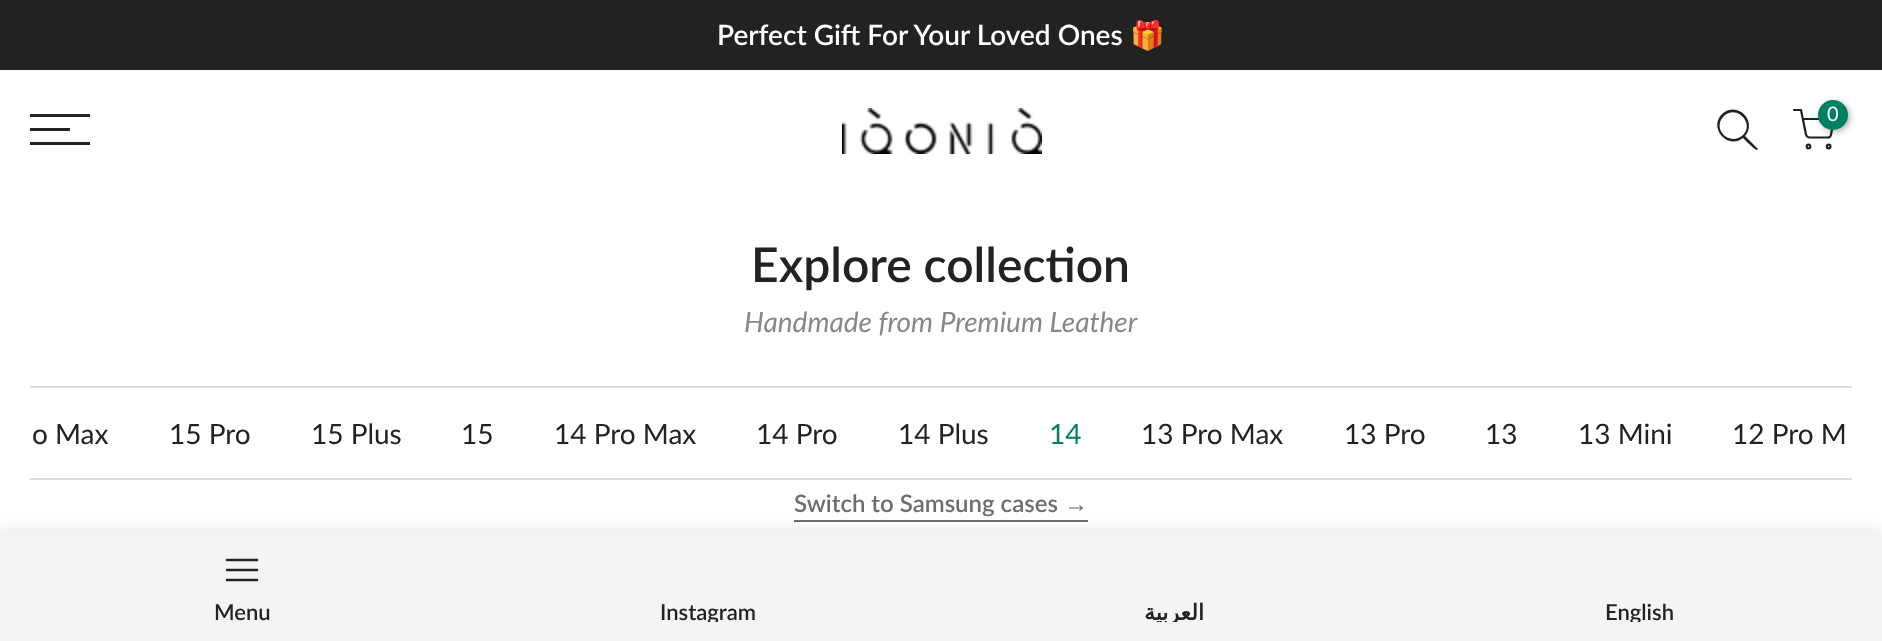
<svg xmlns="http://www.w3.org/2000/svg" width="1882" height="641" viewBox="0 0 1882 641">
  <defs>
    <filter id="blur1" x="-50%" y="-200%" width="200%" height="500%"><feGaussianBlur stdDeviation="3"/></filter>
    <filter id="blur2" x="-50%" y="-200%" width="200%" height="500%"><feGaussianBlur stdDeviation="9"/></filter>
    <clipPath id="clip1"><rect x="496" y="600" width="426" height="22"/></clipPath>
    <clipPath id="clip2"><rect x="962" y="600" width="424" height="22"/></clipPath>
    <clipPath id="clip3"><rect x="1426" y="600" width="426" height="22"/></clipPath>
  </defs>
  <rect width="100%" height="100%" fill="#ffffff"/>
  <rect x="0" y="0" width="1882" height="70" fill="#222222"/>
  <text x="717" y="45" font-family="Lato" font-size="28" font-weight="600" fill="#ffffff">Perfect Gift For Your Loved Ones</text>
  <text x="1130" y="45" font-family="Noto Color Emoji" font-size="28" font-weight="bold" fill="#ffffff">🎁</text>
  <rect x="30" y="114" width="60" height="3" fill="#222222"/>
  <rect x="30" y="128" width="40" height="3" fill="#222222"/>
  <rect x="30" y="142" width="60" height="3" fill="#222222"/>
  <image x="842" y="108" width="200" height="46" href="img1.png"/>
  <path d="M1743 135C1730 147 1711 129 1724 116C1736 104 1755 123 1743 135ZM1743 138C1728 150 1708 128 1722 114C1737 100 1758 121 1745 136L1758 149L1757 150C1756 151 1745 140 1743 138Z" fill="#222222" fill-rule="evenodd"/>
  <path d="M1794 110H1801L1806 134.5C1806.5 136 1808 137.5 1809.5 137.5H1827.5C1829.5 137.5 1831 136 1831 134.5L1834 119H1803" fill="none" stroke="#222222" stroke-width="2.2" stroke-linecap="round" stroke-linejoin="round"/>
  <rect x="1820" y="102" width="30" height="30" rx="15" fill="#000000" fill-opacity="0.3" filter="url(#blur1)"/>
  <circle cx="1833" cy="115" r="15" fill="#008060"/>
  <text x="1827" y="121" font-family="Lato" font-size="20" fill="#ffffff">0</text>
  <circle cx="1808.5" cy="146.5" r="1.8" fill="none" stroke="#222222" stroke-width="2.2"/>
  <circle cx="1828.7" cy="146.5" r="1.8" fill="none" stroke="#222222" stroke-width="2.2"/>
  <text x="751" y="282" font-family="Lato" font-size="48" font-weight="600" fill="#222222">Explore collection</text>
  <text x="744" y="332" font-family="Lato" font-size="28" font-style="italic" fill="#878787">Handmade from Premium Leather</text>
  <rect x="30" y="386" width="1822" height="2" fill="#dddddd"/>
  <rect x="30" y="478" width="1822" height="2" fill="#dddddd"/>
  <text x="32" y="444" font-family="Lato" font-size="28" fill="#222222">o Max</text>
  <text x="169" y="444" font-family="Lato" font-size="28" fill="#222222">15 Pro</text>
  <text x="311" y="444" font-family="Lato" font-size="28" fill="#222222">15 Plus</text>
  <text x="461" y="444" font-family="Lato" font-size="28" fill="#222222">15</text>
  <text x="554" y="444" font-family="Lato" font-size="28" fill="#222222">14 Pro Max</text>
  <text x="756" y="444" font-family="Lato" font-size="28" fill="#222222">14 Pro</text>
  <text x="898" y="444" font-family="Lato" font-size="28" fill="#222222">14 Plus</text>
  <text x="1049" y="444" font-family="Lato" font-size="28" fill="#008060">14</text>
  <text x="1141" y="444" font-family="Lato" font-size="28" fill="#222222">13 Pro Max</text>
  <text x="1344" y="444" font-family="Lato" font-size="28" fill="#222222">13 Pro</text>
  <text x="1485" y="444" font-family="Lato" font-size="28" fill="#222222">13</text>
  <text x="1578" y="444" font-family="Lato" font-size="28" fill="#222222">13 Mini</text>
  <text x="1732" y="444" font-family="Lato" font-size="28" fill="#222222">12 Pro M</text>
  <text x="794" y="512" font-family="Lato" font-size="24" font-weight="600" fill="#6e6d6d">Switch to Samsung cases</text>
  <text x="1064" y="512" font-family="Liberation Sans" font-size="24" font-weight="bold" fill="#6e6d6d">→</text>
  <rect x="794" y="520" width="294" height="2" fill="#6e6d6d"/>
  <rect x="0" y="532" width="1882" height="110" fill="#000000" fill-opacity="0.12" filter="url(#blur2)"/>
  <rect x="0" y="532" width="1882" height="109" fill="#f4f4f4"/>
  <path d="M227 570H257M227 560H257M227 580H257" fill="none" stroke="#222222" stroke-width="2.5" stroke-linecap="round" stroke-linejoin="round"/>
  <text x="214" y="620" font-family="Lato" font-size="22" font-weight="600" fill="#222222">Menu</text>
  <g clip-path="url(#clip1)">
    <text x="660" y="620" font-family="Lato" font-size="22" font-weight="600" fill="#222222">Instagram</text>
  </g>
  <g clip-path="url(#clip2)">
    <text x="1204" y="620" font-family="DejaVu Sans" font-size="22" font-weight="bold" direction="rtl" fill="#222222">العربية</text>
  </g>
  <g clip-path="url(#clip3)">
    <text x="1605" y="620" font-family="Lato" font-size="22" font-weight="600" fill="#222222">English</text>
  </g>
</svg>
